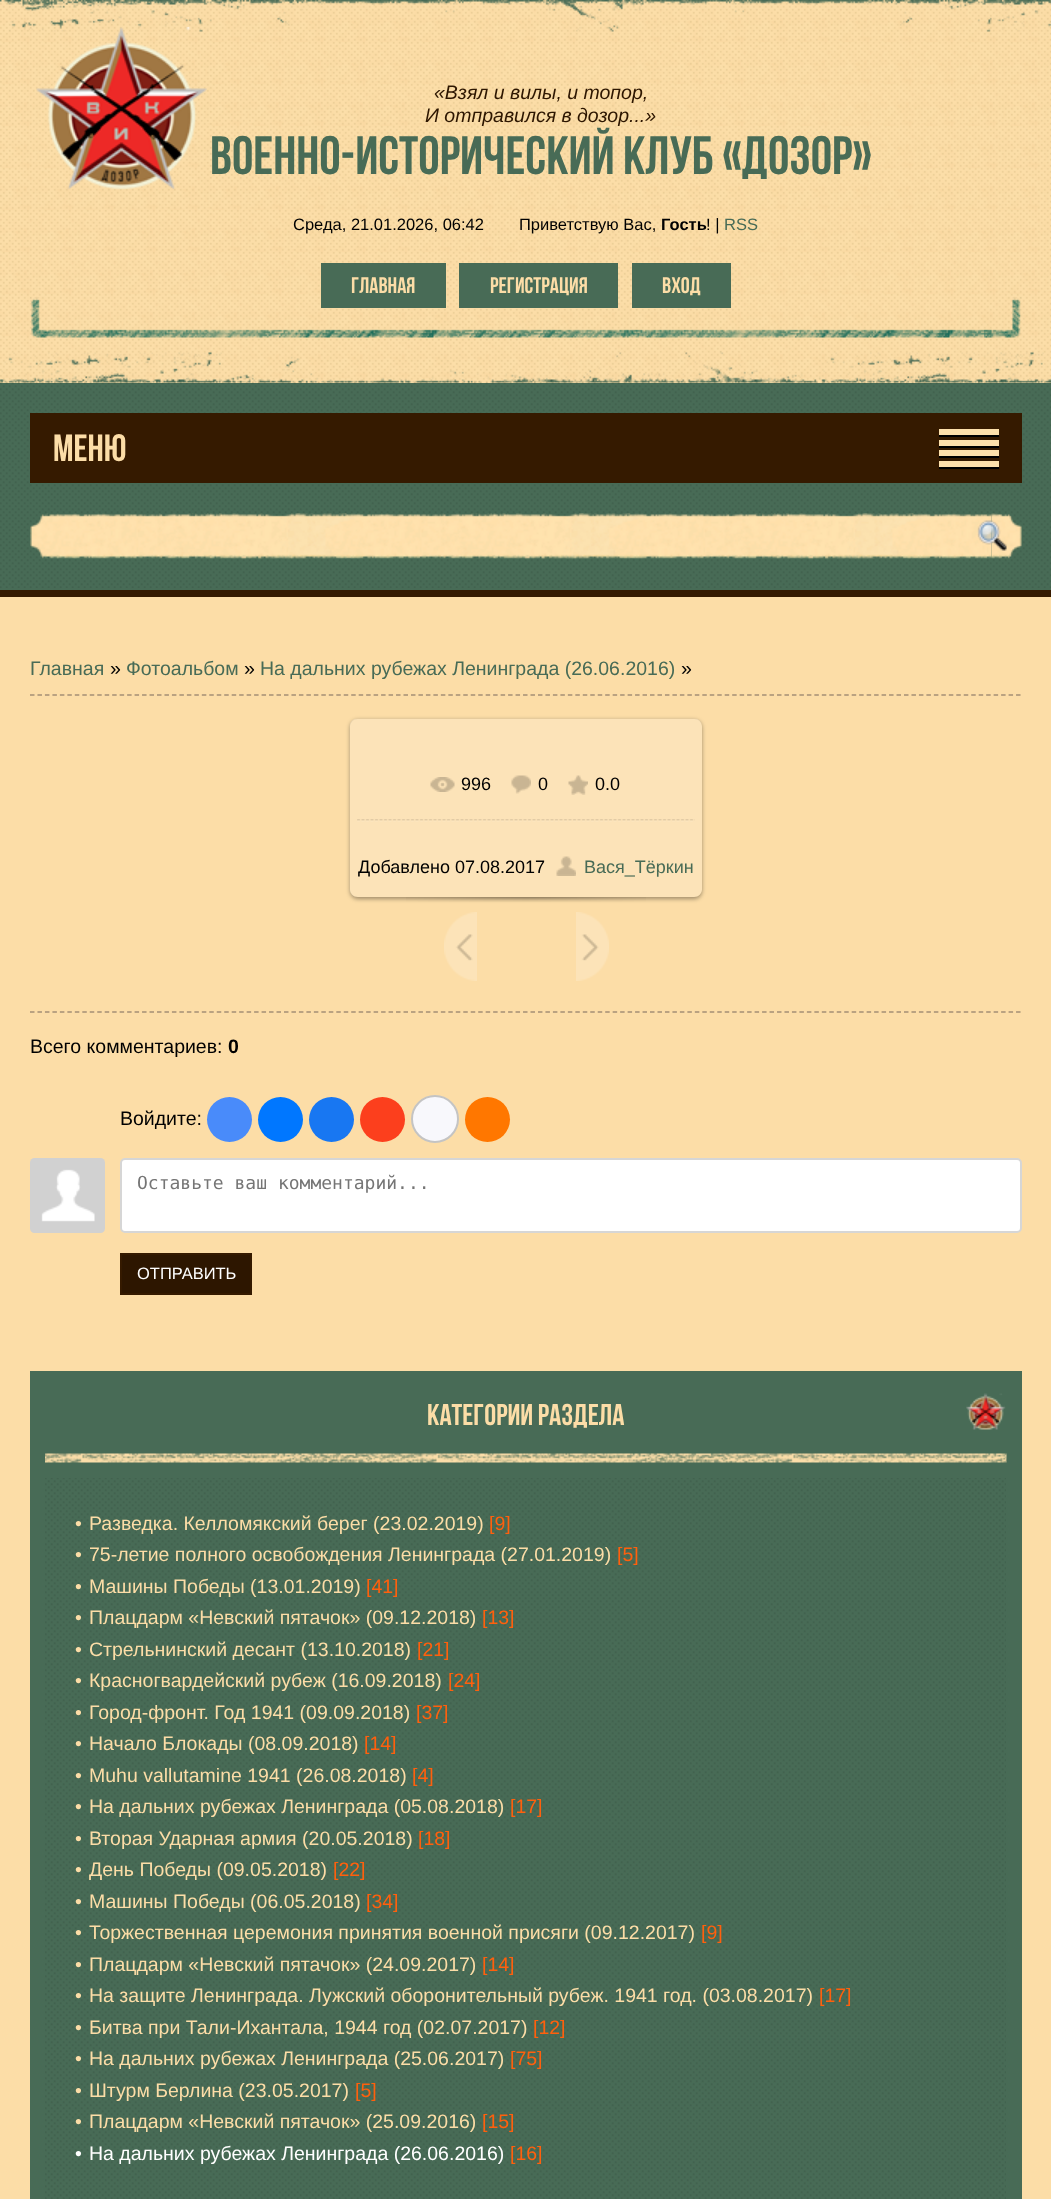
<svg xmlns="http://www.w3.org/2000/svg" width="1051" height="2199" viewBox="0 0 1051 2199">
  <defs>
    <clipPath id="clip1"><path d="M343 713H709V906H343ZM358 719H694C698.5 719 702 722.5 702 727V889C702 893.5 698.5 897 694 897H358C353.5 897 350 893.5 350 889V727C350 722.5 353.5 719 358 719Z" clip-rule="evenodd"/></clipPath>
    <filter id="blur1" x="-50%" y="-200%" width="200%" height="500%"><feGaussianBlur stdDeviation="2"/></filter>
  </defs>
  <rect width="100%" height="100%" fill="#fcdda7"/>
  <image x="0" y="0" width="1051" height="383" href="img1.png"/>
  <image x="0" y="0" width="1051" height="32" href="img2.png"/>
  <image x="36" y="26" width="171" height="164" href="img3.png"/>
  <text x="434" y="99" font-family="Liberation Sans" font-size="19.5" font-style="italic" fill="#2d1600">«Взял и вилы, и топор,</text>
  <text x="425" y="122" font-family="Liberation Sans" font-size="19.5" font-style="italic" fill="#2d1600">И отправился в дозор...»</text>
  <text x="210" y="174" font-family="Bebas Neue" font-size="54" font-weight="bold" fill="#486b56">ВОЕННО-ИСТОРИЧЕСКИЙ КЛУБ «ДОЗОР»</text>
  <image x="0" y="351" width="1051" height="32" href="img4.png"/>
  <text x="293" y="230" font-family="Liberation Sans" font-size="16.5" fill="#000000">Среда, 21.01.2026, 06:42</text>
  <text x="519" y="230" font-family="Liberation Sans" font-size="16.5" fill="#000000">Приветствую Вас,</text>
  <text x="661" y="230" font-family="Liberation Sans" font-size="16.5" font-weight="bold" fill="#000000">Гость</text>
  <text x="706" y="230" font-family="Liberation Sans" font-size="16.5" fill="#000000">! |</text>
  <text x="724" y="230" font-family="Liberation Sans" font-size="16.5" fill="#486b56">RSS</text>
  <image x="30" y="297" width="962" height="41" href="img5.png"/>
  <rect x="321" y="263" width="125" height="45" fill="#486b56"/>
  <text x="351" y="293" font-family="Bebas Neue" font-size="22.5" font-weight="bold" fill="#fcdda7">ГЛАВНАЯ</text>
  <rect x="459" y="263" width="159" height="45" fill="#486b56"/>
  <text x="490" y="293" font-family="Bebas Neue" font-size="22.5" font-weight="bold" fill="#fcdda7">РЕГИСТРАЦИЯ</text>
  <rect x="632" y="263" width="99" height="45" fill="#486b56"/>
  <text x="662" y="293" font-family="Bebas Neue" font-size="22.5" font-weight="bold" fill="#fcdda7">ВХОД</text>
  <image x="984" y="297" width="38" height="41" href="img6.png"/>
  <rect x="0" y="383" width="1051" height="207" fill="#486b56"/>
  <image x="0" y="382" width="1051" height="206" href="img7.png"/>
  <rect x="30" y="413" width="992" height="70" fill="#351a00"/>
  <text x="53" y="461" font-family="Bebas Neue" font-size="38" font-weight="bold" fill="#fcdda7">МЕНЮ</text>
  <rect x="939" y="429" width="60" height="6" fill="#fde0ab"/>
  <rect x="939" y="435" width="60" height="2" fill="#000000"/>
  <rect x="939" y="440" width="60" height="6" fill="#fde0ab"/>
  <rect x="939" y="446" width="60" height="2" fill="#000000"/>
  <rect x="939" y="450" width="60" height="6" fill="#fde0ab"/>
  <rect x="939" y="456" width="60" height="2" fill="#000000"/>
  <rect x="939" y="461" width="60" height="6" fill="#fde0ab"/>
  <rect x="939" y="467" width="60" height="2" fill="#000000"/>
  <image x="991" y="513" width="31" height="46" href="img8.png"/>
  <image x="30" y="513" width="962" height="47" href="img9.png"/>
  <image x="977" y="520" width="30" height="31" href="img10.png"/>
  <rect x="0" y="590" width="1051" height="7" fill="#351a00"/>
  <text x="30" y="675" font-family="Liberation Sans" font-size="19.5" fill="#486b56">Главная</text>
  <text x="110" y="675" font-family="Liberation Sans" font-size="19.5" fill="#000000">»</text>
  <text x="126" y="675" font-family="Liberation Sans" font-size="19.5" fill="#486b56">Фотоальбом</text>
  <text x="244" y="675" font-family="Liberation Sans" font-size="19.5" fill="#000000">»</text>
  <text x="260" y="675" font-family="Liberation Sans" font-size="19.5" fill="#486b56">На дальних рубежах Ленинграда (26.06.2016)</text>
  <text x="681" y="675" font-family="Liberation Sans" font-size="19.5" fill="#000000">»</text>
  <path d="M30 695H1021.5" fill="none" stroke="#a48f76" stroke-width="1.5" stroke-dasharray="4.5 2.97"/>
  <g clip-path="url(#clip1)">
    <rect x="350" y="720" width="352" height="179" rx="8" fill="#000000" fill-opacity="0.37" filter="url(#blur1)"/>
  </g>
  <image x="349" y="718" width="353" height="179" href="img11.png"/>
  <image x="430" y="777" width="25" height="15" href="img12.png"/>
  <text x="461" y="790" font-family="Liberation Sans" font-size="18" fill="#000000">996</text>
  <image x="511" y="775" width="20" height="19" href="img13.png"/>
  <text x="538" y="790" font-family="Liberation Sans" font-size="18" fill="#000000">0</text>
  <image x="568" y="775" width="20" height="20" href="img14.png"/>
  <text x="595" y="790" font-family="Liberation Sans" font-size="18" fill="#000000">0.0</text>
  <image x="357" y="819" width="338" height="3" href="img15.png"/>
  <text x="358" y="873" font-family="Liberation Sans" font-size="18" fill="#000000">Добавлено 07.08.2017</text>
  <image x="556" y="856" width="20" height="20" href="img16.png"/>
  <text x="584" y="873" font-family="Liberation Sans" font-size="18" fill="#486b56">Вася_Тёркин</text>
  <image x="406" y="897" width="240" height="5" href="img17.png"/>
  <image x="444" y="912" width="33" height="69" href="img18.png"/>
  <image x="576" y="912" width="33" height="69" href="img19.png"/>
  <path d="M30 1012H1021.5" fill="none" stroke="#a48f76" stroke-width="1.5" stroke-dasharray="4.5 2.97"/>
  <text x="30" y="1053" font-family="Liberation Sans" font-size="19.5" fill="#000000">Всего комментариев:</text>
  <text x="228" y="1053" font-family="Liberation Sans" font-size="19.5" font-weight="bold" fill="#000000">0</text>
  <text x="120" y="1125" font-family="Liberation Sans" font-size="19.5" fill="#000000">Войдите:</text>
  <circle cx="229.5" cy="1119.5" r="22.5" fill="#498bfa"/>
  <circle cx="280.5" cy="1119.5" r="22.5" fill="#0077ff"/>
  <circle cx="331.5" cy="1119.5" r="22.5" fill="#1877f2"/>
  <circle cx="382.5" cy="1119.5" r="22.5" fill="#fc3f1d"/>
  <circle cx="435" cy="1119" r="23" fill="#f8f8fc" stroke="#c4c4c4" stroke-width="2"/>
  <circle cx="487.5" cy="1119.5" r="22.5" fill="#ff7700"/>
  <image x="30" y="1158" width="75" height="75" href="img20.png"/>
  <rect x="121" y="1159" width="900" height="73" rx="4" fill="#ffffff" stroke="#d6d6d6" stroke-width="2"/>
  <text x="137" y="1189" font-family="DejaVu Sans Mono" font-size="18" fill="#757575">Оставьте ваш комментарий...</text>
  <rect x="121" y="1254" width="130" height="40" fill="#2d1600" stroke="#351a00" stroke-width="2"/>
  <text x="137" y="1279" font-family="Liberation Sans" font-size="16.5" fill="#ffffff">ОТПРАВИТЬ</text>
  <rect x="30" y="1371" width="992" height="828" fill="#486b56"/>
  <image x="966" y="1393" width="40" height="37" href="img21.png"/>
  <image x="45" y="1453" width="962" height="10" href="img22.png"/>
  <text x="427" y="1425" font-family="Bebas Neue" font-size="30" font-weight="bold" fill="#fcdda7">КАТЕГОРИИ РАЗДЕЛА</text>
  <image x="45" y="1478" width="961" height="721" href="img23.png"/>
  <text x="75" y="1530" font-family="Liberation Sans" font-size="19.5" fill="#fcdda7">•</text>
  <text x="89" y="1530" font-family="Liberation Sans" font-size="19.5" fill="#fcdda7">Разведка. Келломякский берег (23.02.2019)</text>
  <text x="489" y="1530" font-family="Liberation Sans" font-size="19.5" fill="#ff600d">[9]</text>
  <text x="75" y="1561" font-family="Liberation Sans" font-size="19.5" fill="#fcdda7">•</text>
  <text x="89" y="1561" font-family="Liberation Sans" font-size="19.5" fill="#fcdda7">75-летие полного освобождения Ленинграда (27.01.2019)</text>
  <text x="617" y="1561" font-family="Liberation Sans" font-size="19.5" fill="#ff600d">[5]</text>
  <text x="75" y="1593" font-family="Liberation Sans" font-size="19.5" fill="#fcdda7">•</text>
  <text x="89" y="1593" font-family="Liberation Sans" font-size="19.5" fill="#fcdda7">Машины Победы (13.01.2019)</text>
  <text x="366" y="1593" font-family="Liberation Sans" font-size="19.5" fill="#ff600d">[41]</text>
  <text x="75" y="1624" font-family="Liberation Sans" font-size="19.5" fill="#fcdda7">•</text>
  <text x="89" y="1624" font-family="Liberation Sans" font-size="19.5" fill="#fcdda7">Плацдарм «Невский пятачок» (09.12.2018)</text>
  <text x="482" y="1624" font-family="Liberation Sans" font-size="19.5" fill="#ff600d">[13]</text>
  <text x="75" y="1656" font-family="Liberation Sans" font-size="19.5" fill="#fcdda7">•</text>
  <text x="89" y="1656" font-family="Liberation Sans" font-size="19.5" fill="#fcdda7">Стрельнинский десант (13.10.2018)</text>
  <text x="417" y="1656" font-family="Liberation Sans" font-size="19.5" fill="#ff600d">[21]</text>
  <text x="75" y="1687" font-family="Liberation Sans" font-size="19.5" fill="#fcdda7">•</text>
  <text x="89" y="1687" font-family="Liberation Sans" font-size="19.5" fill="#fcdda7">Красногвардейский рубеж (16.09.2018)</text>
  <text x="448" y="1687" font-family="Liberation Sans" font-size="19.5" fill="#ff600d">[24]</text>
  <text x="75" y="1719" font-family="Liberation Sans" font-size="19.5" fill="#fcdda7">•</text>
  <text x="89" y="1719" font-family="Liberation Sans" font-size="19.5" fill="#fcdda7">Город-фронт. Год 1941 (09.09.2018)</text>
  <text x="416" y="1719" font-family="Liberation Sans" font-size="19.5" fill="#ff600d">[37]</text>
  <text x="75" y="1750" font-family="Liberation Sans" font-size="19.5" fill="#fcdda7">•</text>
  <text x="89" y="1750" font-family="Liberation Sans" font-size="19.5" fill="#fcdda7">Начало Блокады (08.09.2018)</text>
  <text x="364" y="1750" font-family="Liberation Sans" font-size="19.5" fill="#ff600d">[14]</text>
  <text x="75" y="1782" font-family="Liberation Sans" font-size="19.5" fill="#fcdda7">•</text>
  <text x="89" y="1782" font-family="Liberation Sans" font-size="19.5" fill="#fcdda7">Muhu vallutamine 1941 (26.08.2018)</text>
  <text x="412" y="1782" font-family="Liberation Sans" font-size="19.5" fill="#ff600d">[4]</text>
  <text x="75" y="1813" font-family="Liberation Sans" font-size="19.5" fill="#fcdda7">•</text>
  <text x="89" y="1813" font-family="Liberation Sans" font-size="19.5" fill="#fcdda7">На дальних рубежах Ленинграда (05.08.2018)</text>
  <text x="510" y="1813" font-family="Liberation Sans" font-size="19.5" fill="#ff600d">[17]</text>
  <text x="75" y="1845" font-family="Liberation Sans" font-size="19.5" fill="#fcdda7">•</text>
  <text x="89" y="1845" font-family="Liberation Sans" font-size="19.5" fill="#fcdda7">Вторая Ударная армия (20.05.2018)</text>
  <text x="418" y="1845" font-family="Liberation Sans" font-size="19.5" fill="#ff600d">[18]</text>
  <text x="75" y="1876" font-family="Liberation Sans" font-size="19.5" fill="#fcdda7">•</text>
  <text x="89" y="1876" font-family="Liberation Sans" font-size="19.5" fill="#fcdda7">День Победы (09.05.2018)</text>
  <text x="333" y="1876" font-family="Liberation Sans" font-size="19.5" fill="#ff600d">[22]</text>
  <text x="75" y="1908" font-family="Liberation Sans" font-size="19.5" fill="#fcdda7">•</text>
  <text x="89" y="1908" font-family="Liberation Sans" font-size="19.5" fill="#fcdda7">Машины Победы (06.05.2018)</text>
  <text x="366" y="1908" font-family="Liberation Sans" font-size="19.5" fill="#ff600d">[34]</text>
  <text x="75" y="1939" font-family="Liberation Sans" font-size="19.5" fill="#fcdda7">•</text>
  <text x="89" y="1939" font-family="Liberation Sans" font-size="19.5" fill="#fcdda7">Торжественная церемония принятия военной присяги (09.12.2017)</text>
  <text x="701" y="1939" font-family="Liberation Sans" font-size="19.5" fill="#ff600d">[9]</text>
  <text x="75" y="1971" font-family="Liberation Sans" font-size="19.5" fill="#fcdda7">•</text>
  <text x="89" y="1971" font-family="Liberation Sans" font-size="19.5" fill="#fcdda7">Плацдарм «Невский пятачок» (24.09.2017)</text>
  <text x="482" y="1971" font-family="Liberation Sans" font-size="19.5" fill="#ff600d">[14]</text>
  <text x="75" y="2002" font-family="Liberation Sans" font-size="19.5" fill="#fcdda7">•</text>
  <text x="89" y="2002" font-family="Liberation Sans" font-size="19.5" fill="#fcdda7">На защите Ленинграда. Лужский оборонительный рубеж. 1941 год. (03.08.2017)</text>
  <text x="819" y="2002" font-family="Liberation Sans" font-size="19.5" fill="#ff600d">[17]</text>
  <text x="75" y="2034" font-family="Liberation Sans" font-size="19.5" fill="#fcdda7">•</text>
  <text x="89" y="2034" font-family="Liberation Sans" font-size="19.5" fill="#fcdda7">Битва при Тали-Ихантала, 1944 год (02.07.2017)</text>
  <text x="533" y="2034" font-family="Liberation Sans" font-size="19.5" fill="#ff600d">[12]</text>
  <text x="75" y="2065" font-family="Liberation Sans" font-size="19.5" fill="#fcdda7">•</text>
  <text x="89" y="2065" font-family="Liberation Sans" font-size="19.5" fill="#fcdda7">На дальних рубежах Ленинграда (25.06.2017)</text>
  <text x="510" y="2065" font-family="Liberation Sans" font-size="19.5" fill="#ff600d">[75]</text>
  <text x="75" y="2097" font-family="Liberation Sans" font-size="19.5" fill="#fcdda7">•</text>
  <text x="89" y="2097" font-family="Liberation Sans" font-size="19.5" fill="#fcdda7">Штурм Берлина (23.05.2017)</text>
  <text x="355" y="2097" font-family="Liberation Sans" font-size="19.5" fill="#ff600d">[5]</text>
  <text x="75" y="2128" font-family="Liberation Sans" font-size="19.5" fill="#fcdda7">•</text>
  <text x="89" y="2128" font-family="Liberation Sans" font-size="19.5" fill="#fcdda7">Плацдарм «Невский пятачок» (25.09.2016)</text>
  <text x="482" y="2128" font-family="Liberation Sans" font-size="19.5" fill="#ff600d">[15]</text>
  <text x="75" y="2160" font-family="Liberation Sans" font-size="19.5" fill="#ffffff">•</text>
  <text x="89" y="2160" font-family="Liberation Sans" font-size="19.5" fill="#ffffff">На дальних рубежах Ленинграда (26.06.2016)</text>
  <text x="510" y="2160" font-family="Liberation Sans" font-size="19.5" fill="#ff600d">[16]</text>
</svg>
